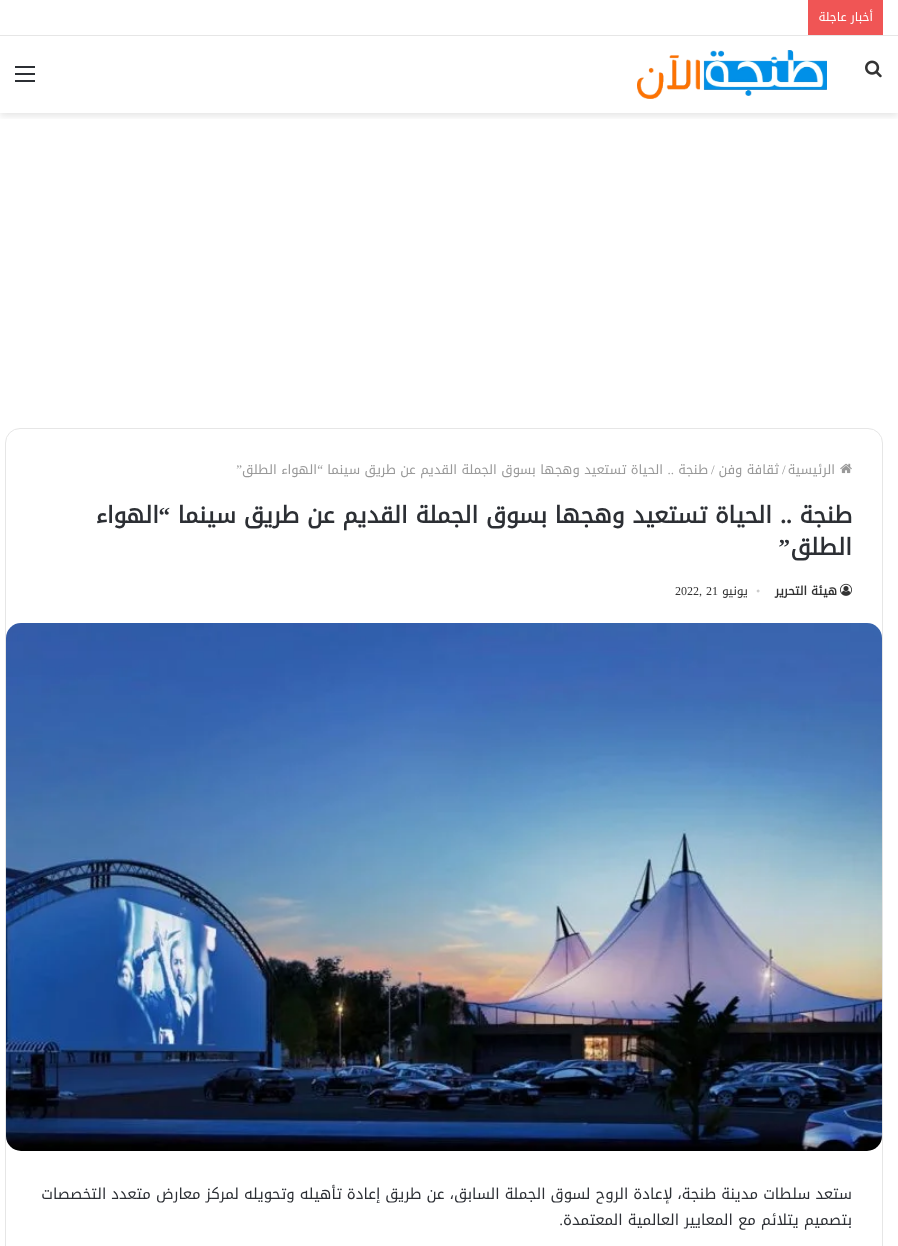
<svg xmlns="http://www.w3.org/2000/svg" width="898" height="1246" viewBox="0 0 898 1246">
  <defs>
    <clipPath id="clip1"><rect x="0" y="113" width="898" height="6"/></clipPath>
    <filter id="blur1" x="-50%" y="-200%" width="200%" height="500%"><feGaussianBlur stdDeviation="3.5"/></filter>
  </defs>
  <rect width="100%" height="100%" fill="#ffffff"/>
  <g clip-path="url(#clip1)">
    <rect x="0" y="39" width="898" height="77" fill="#000000" fill-opacity="0.1" filter="url(#blur1)"/>
  </g>
  <rect x="0" y="35" width="898" height="1" fill="#e6e6e6"/>
  <rect x="808" y="0" width="75" height="35" fill="#f05555"/>
  <text x="873" y="21" font-family="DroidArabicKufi" font-size="12" direction="rtl" fill="#ffffff">أخبار عاجلة</text>
  <image x="865" y="60" width="17" height="18" href="img1.png"/>
  <image x="637" y="50" width="190" height="49" href="img2.png"/>
  <rect x="15" y="73" width="20" height="2" fill="#2c2f34"/>
  <rect x="15" y="66" width="20" height="2" fill="#2c2f34"/>
  <rect x="15" y="80" width="20" height="2" fill="#2c2f34"/>
  <rect x="5.5" y="428.5" width="877" height="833" rx="14.5" fill="none" stroke="#e6e6e6"/>
  <image x="840" y="463" width="12" height="11" href="img3.png"/>
  <text x="835" y="474" font-family="DroidArabicKufi" font-size="13" direction="rtl" fill="#999999">الرئيسية</text>
  <text x="782" y="474" font-family="Liberation Serif" font-size="13" fill="#999999">/</text>
  <text x="779" y="474" font-family="DroidArabicKufi" font-size="13" direction="rtl" fill="#999999">ثقافة وفن</text>
  <text x="711" y="474" font-family="Liberation Serif" font-size="13" fill="#999999">/</text>
  <text x="708" y="474" font-family="DroidArabicKufi" font-size="13" direction="rtl" fill="#999999">طنجة</text>
  <text x="674" y="474" font-family="Liberation Serif" font-size="13" direction="rtl" fill="#999999">..</text>
  <text x="663" y="474" font-family="DroidArabicKufi" font-size="13" direction="rtl" fill="#999999">الحياة تستعيد وهجها بسوق الجملة القديم عن طريق سينما</text>
  <text x="323" y="474" font-family="Liberation Serif" font-size="13" direction="rtl" fill="#999999">“</text>
  <text x="317" y="474" font-family="DroidArabicKufi" font-size="13" direction="rtl" fill="#999999">الهواء الطلق</text>
  <text x="242" y="474" font-family="Liberation Serif" font-size="13" direction="rtl" fill="#999999">”</text>
  <text x="852" y="523" font-family="DroidArabicKufi" font-size="23" font-weight="bold" direction="rtl" fill="#2c2f34">طنجة</text>
  <text x="772" y="523" font-family="DroidArabicKufi" font-size="23" font-weight="bold" direction="rtl" fill="#2c2f34">الحياة تستعيد وهجها بسوق الجملة القديم عن طريق سينما</text>
  <text x="170" y="523" font-family="Liberation Serif" font-size="23" font-weight="bold" direction="rtl" fill="#2c2f34">“</text>
  <text x="159" y="523" font-family="DroidArabicKufi" font-size="23" font-weight="bold" direction="rtl" fill="#2c2f34">الهواء</text>
  <text x="792" y="523" font-family="Liberation Serif" font-size="23" font-weight="bold" direction="rtl" fill="#2c2f34">..</text>
  <text x="852" y="555" font-family="DroidArabicKufi" font-size="23" font-weight="bold" direction="rtl" fill="#2c2f34">الطلق</text>
  <text x="790" y="555" font-family="Liberation Serif" font-size="23" font-weight="bold" direction="rtl" fill="#2c2f34">”</text>
  <image x="840" y="583" width="12" height="13" href="img4.png"/>
  <text x="837" y="595" font-family="DroidArabicKufi" font-size="12" font-weight="bold" direction="rtl" fill="#333333">هيئة التحرير</text>
  <text x="756" y="595" font-family="Liberation Serif" font-size="12" fill="#cccccc">•</text>
  <text x="748" y="595" font-family="DroidArabicKufi" font-size="12" direction="rtl" fill="#333333">يونيو</text>
  <text x="706" y="595" font-family="Liberation Serif" font-size="12" fill="#333333">21</text>
  <text x="675" y="595" font-family="Liberation Serif" font-size="12" fill="#333333">2022,</text>
  <image x="6" y="623" width="876" height="528" href="img5.png"/>
  <text x="852" y="1199" font-family="DroidArabicKufi" font-size="15" direction="rtl" fill="#2c2f34">ستعد سلطات مدينة طنجة، لإعادة الروح لسوق الجملة السابق، عن طريق إعادة تأهيله وتحويله لمركز معارض متعدد التخصصات</text>
  <text x="852" y="1225" font-family="DroidArabicKufi" font-size="15" direction="rtl" fill="#2c2f34">بتصميم يتلائم مع المعايير العالمية المعتمدة</text>
  <text x="563" y="1225" font-family="Liberation Serif" font-size="15" direction="rtl" fill="#2c2f34">.</text>
</svg>
